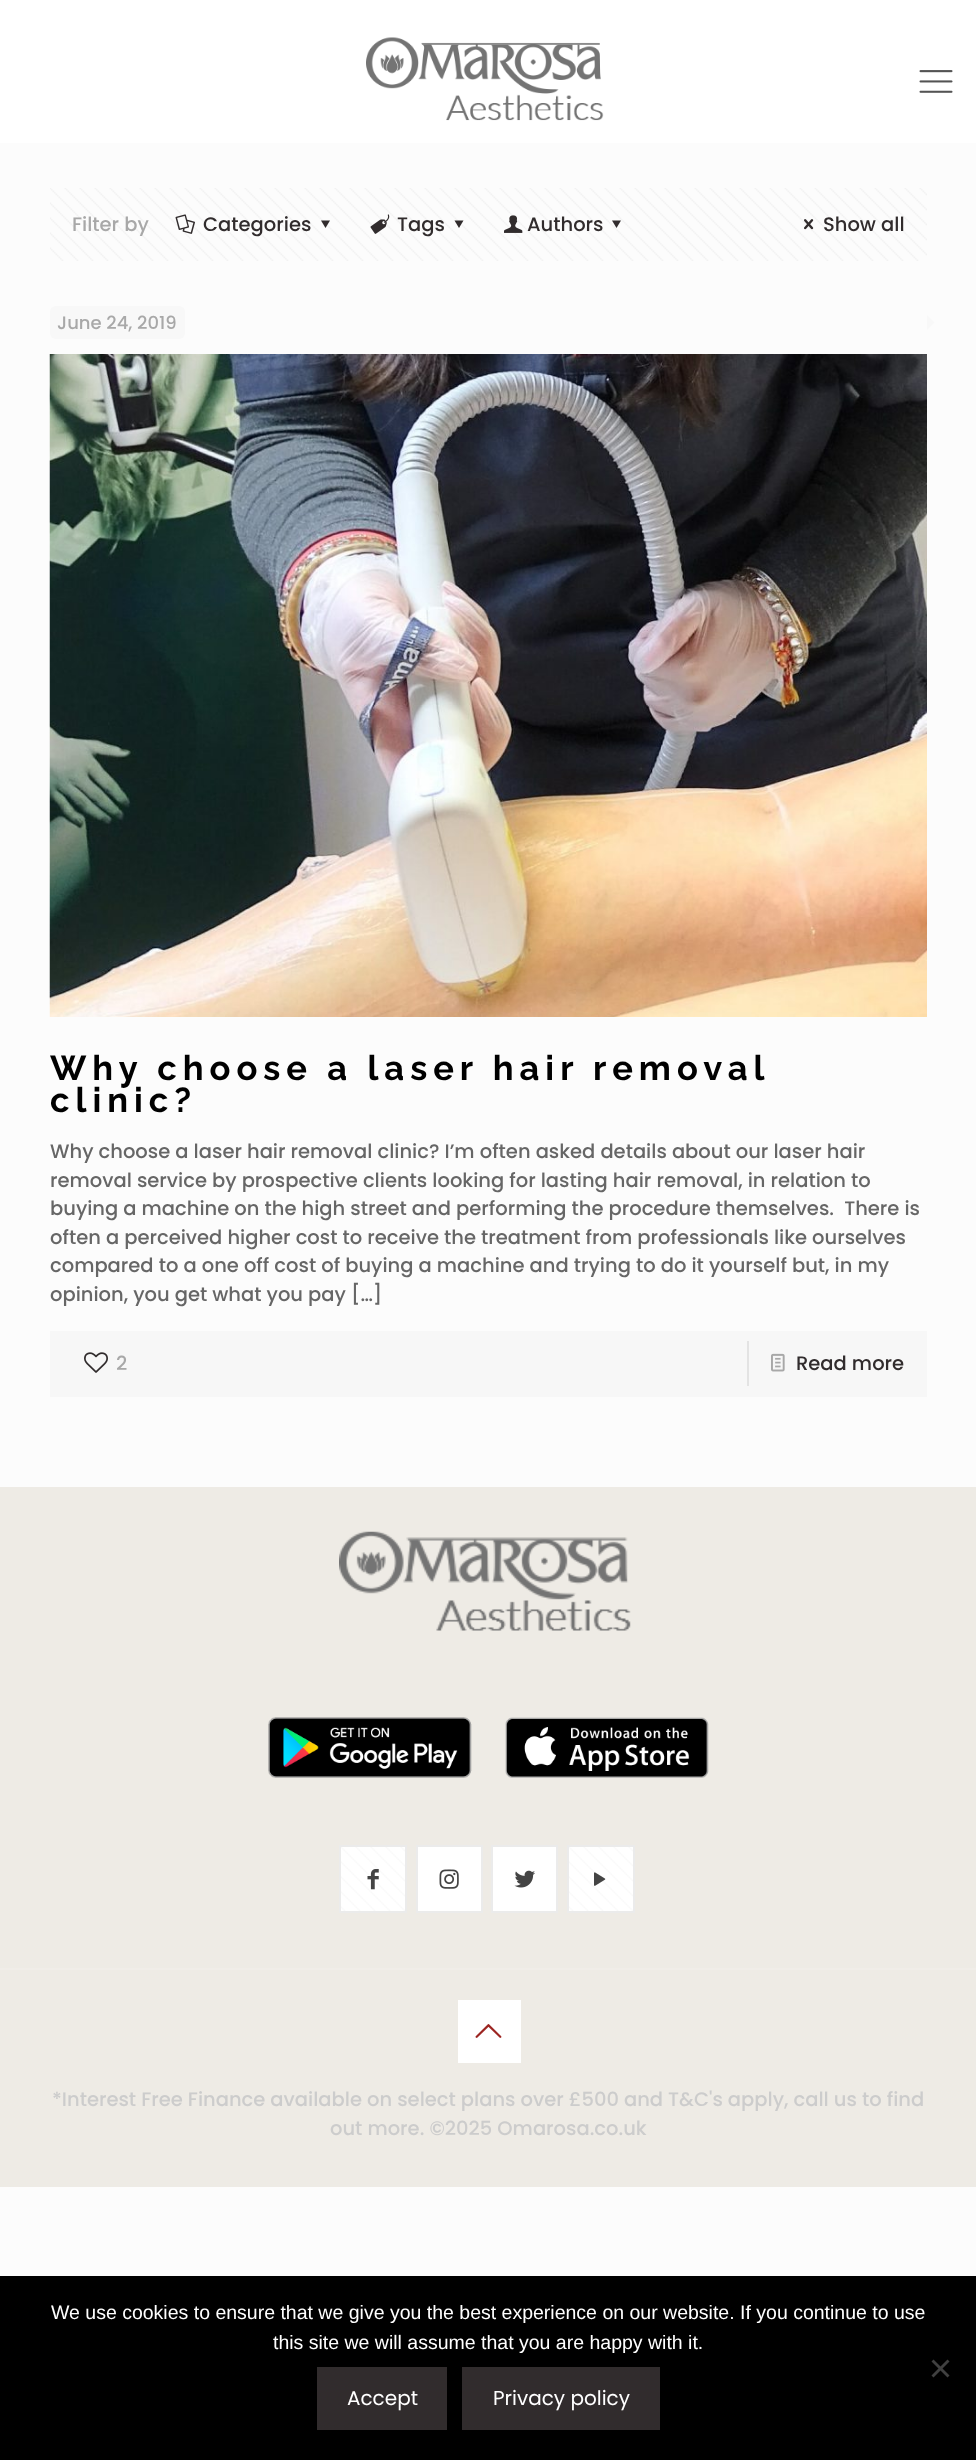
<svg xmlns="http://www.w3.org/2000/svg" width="976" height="2460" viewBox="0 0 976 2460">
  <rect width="100%" height="100%" fill="#fcfcfc"/>
  <rect x="0" y="0" width="976" height="143" fill="#ffffff"/>
  <image x="366" y="37" width="238" height="84" href="img1.png"/>
  <image x="919" y="70" width="34" height="23" href="img2.png"/>
  <image x="50" y="188" width="877" height="73" href="img3.png"/>
  <text x="72" y="231" font-family="Poppins" font-size="19.5" font-weight="500" fill="#a8a8a8">Filter by</text>
  <image x="175" y="214" width="20" height="20" href="img4.png"/>
  <text x="203" y="231" font-family="Poppins" font-size="19.5" font-weight="500" fill="#312c2d">Categories</text>
  <path d="M330 220.5L325.5 228L321 220.5Z" fill="#312c2d"/>
  <image x="370" y="214" width="20" height="20" href="img5.png"/>
  <text x="397" y="231" font-family="Poppins" font-size="19.5" font-weight="500" fill="#312c2d">Tags</text>
  <path d="M463.5 220.5L459 228L454.5 220.5Z" fill="#312c2d"/>
  <image x="504" y="215" width="19" height="18" href="img6.png"/>
  <text x="527" y="231" font-family="Poppins" font-size="19.5" font-weight="500" fill="#312c2d">Authors</text>
  <path d="M621 220.5L616.5 228L612 220.5Z" fill="#312c2d"/>
  <image x="804" y="219" width="10" height="11" href="img7.png"/>
  <text x="823" y="231" font-family="Poppins" font-size="19.5" font-weight="500" fill="#312c2d">Show all</text>
  <rect x="50" y="306" width="135" height="33" rx="6" fill="#f8f8f8"/>
  <text x="57" y="329" font-family="Poppins" font-size="18" font-weight="500" fill="#a8a8a8">June 24, 2019</text>
  <path d="M927 330V315L934.5 322.5Z" fill="#f8f8f8"/>
  <image x="49" y="354" width="878" height="663" href="img8.png"/>
  <text x="50" y="1080" font-family="Raleway" font-size="34.5" font-weight="bold" letter-spacing="6" fill="#000000">Why choose a laser hair removal</text>
  <text x="50" y="1112" font-family="Raleway" font-size="34.5" font-weight="bold" letter-spacing="6" fill="#000000">clinic?</text>
  <text x="50" y="1158" font-family="Poppins" font-size="19.5" font-weight="500" fill="#666666">Why choose a laser hair removal clinic? I’m often asked details about our laser hair</text>
  <text x="50" y="1187" font-family="Poppins" font-size="19.5" font-weight="500" fill="#666666">removal service by prospective clients looking for lasting hair removal, in relation to</text>
  <text x="50" y="1215" font-family="Poppins" font-size="19.5" font-weight="500" fill="#666666" xml:space="preserve">buying a machine on the high street and performing the procedure themselves.  There is</text>
  <text x="50" y="1244" font-family="Poppins" font-size="19.5" font-weight="500" fill="#666666">often a perceived higher cost to receive the treatment from professionals like ourselves</text>
  <text x="50" y="1272" font-family="Poppins" font-size="19.5" font-weight="500" fill="#666666">compared to a one off cost of buying a machine and trying to do it yourself but, in my</text>
  <text x="50" y="1301" font-family="Poppins" font-size="19.5" font-weight="500" fill="#666666">opinion, you get what you pay […]</text>
  <rect x="50" y="1331" width="877" height="66" fill="#f7f7f7"/>
  <image x="84" y="1352" width="24" height="21" href="img9.png"/>
  <text x="116" y="1370" font-family="Poppins" font-size="19.5" font-weight="500" fill="#a8a8a8">2</text>
  <rect x="747" y="1341" width="2" height="45" fill="#e3e3e3"/>
  <image x="771" y="1353" width="14" height="19" href="img10.png"/>
  <text x="796" y="1370" font-family="Poppins" font-size="19.5" font-weight="500" fill="#312c2d">Read more</text>
  <rect x="0" y="1487" width="976" height="700" fill="#eeebe5"/>
  <image x="339" y="1531" width="292" height="100" href="img11.png"/>
  <image x="268" y="1717" width="204" height="61" href="img12.png"/>
  <image x="505" y="1717" width="204" height="61" href="img13.png"/>
  <rect x="339" y="1845" width="68" height="68" fill="#ffffff"/>
  <image x="341" y="1847" width="64" height="64" href="img14.png"/>
  <rect x="340" y="1846" width="66" height="66" fill="none" stroke="#000000" stroke-opacity="0.08" stroke-width="2"/>
  <image x="367" y="1869" width="12" height="21" href="img15.png"/>
  <rect x="416" y="1845" width="67" height="68" fill="#ffffff"/>
  <rect x="417" y="1846" width="65" height="66" fill="none" stroke="#000000" stroke-opacity="0.08" stroke-width="2"/>
  <image x="439" y="1869" width="20" height="20" href="img16.png"/>
  <rect x="491" y="1845" width="67" height="68" fill="#ffffff"/>
  <rect x="492" y="1846" width="65" height="66" fill="none" stroke="#000000" stroke-opacity="0.08" stroke-width="2"/>
  <image x="514" y="1870" width="21" height="18" href="img17.png"/>
  <rect x="567" y="1845" width="68" height="68" fill="#ffffff"/>
  <image x="569" y="1847" width="64" height="64" href="img14.png"/>
  <rect x="568" y="1846" width="66" height="66" fill="none" stroke="#000000" stroke-opacity="0.08" stroke-width="2"/>
  <image x="594" y="1872" width="12" height="14" href="img18.png"/>
  <rect x="0" y="1968" width="976" height="2" fill="#f0ede8"/>
  <rect x="458" y="2000" width="63" height="63" fill="#ffffff"/>
  <image x="475" y="2024" width="27" height="14" href="img19.png"/>
  <text x="52" y="2106" font-family="Poppins" font-size="19.5" font-weight="500" fill="#cccccc">*Interest Free Finance available on select plans over £500 and T&amp;C's apply, call us to find</text>
  <text x="330" y="2135" font-family="Poppins" font-size="19.5" font-weight="500" fill="#cccccc">out more. ©2025 Omarosa.co.uk</text>
  <rect x="0" y="2276" width="976" height="184" fill="#000000"/>
  <text x="51" y="2319" font-family="Liberation Sans" font-size="19.5" fill="#ffffff">We use cookies to ensure that we give you the best experience on our website. If you continue to use</text>
  <text x="273" y="2349" font-family="Liberation Sans" font-size="19.5" fill="#ffffff">this site we will assume that you are happy with it.</text>
  <path d="M947.5 2359.5L949.5 2361.5L933.5 2377.5L931.5 2375.5Z" fill="#404040"/>
  <path d="M931.5 2361.5L933.5 2359.5L949.5 2375.5L947.5 2377.5Z" fill="#404040"/>
  <rect x="317" y="2367" width="130" height="63" fill="#312c2d"/>
  <text x="347" y="2405" font-family="Poppins" font-size="20" fill="#ffffff">Accept</text>
  <rect x="462" y="2367" width="198" height="63" fill="#312c2d"/>
  <text x="493" y="2405" font-family="Poppins" font-size="20" fill="#ffffff">Privacy policy</text>
</svg>
